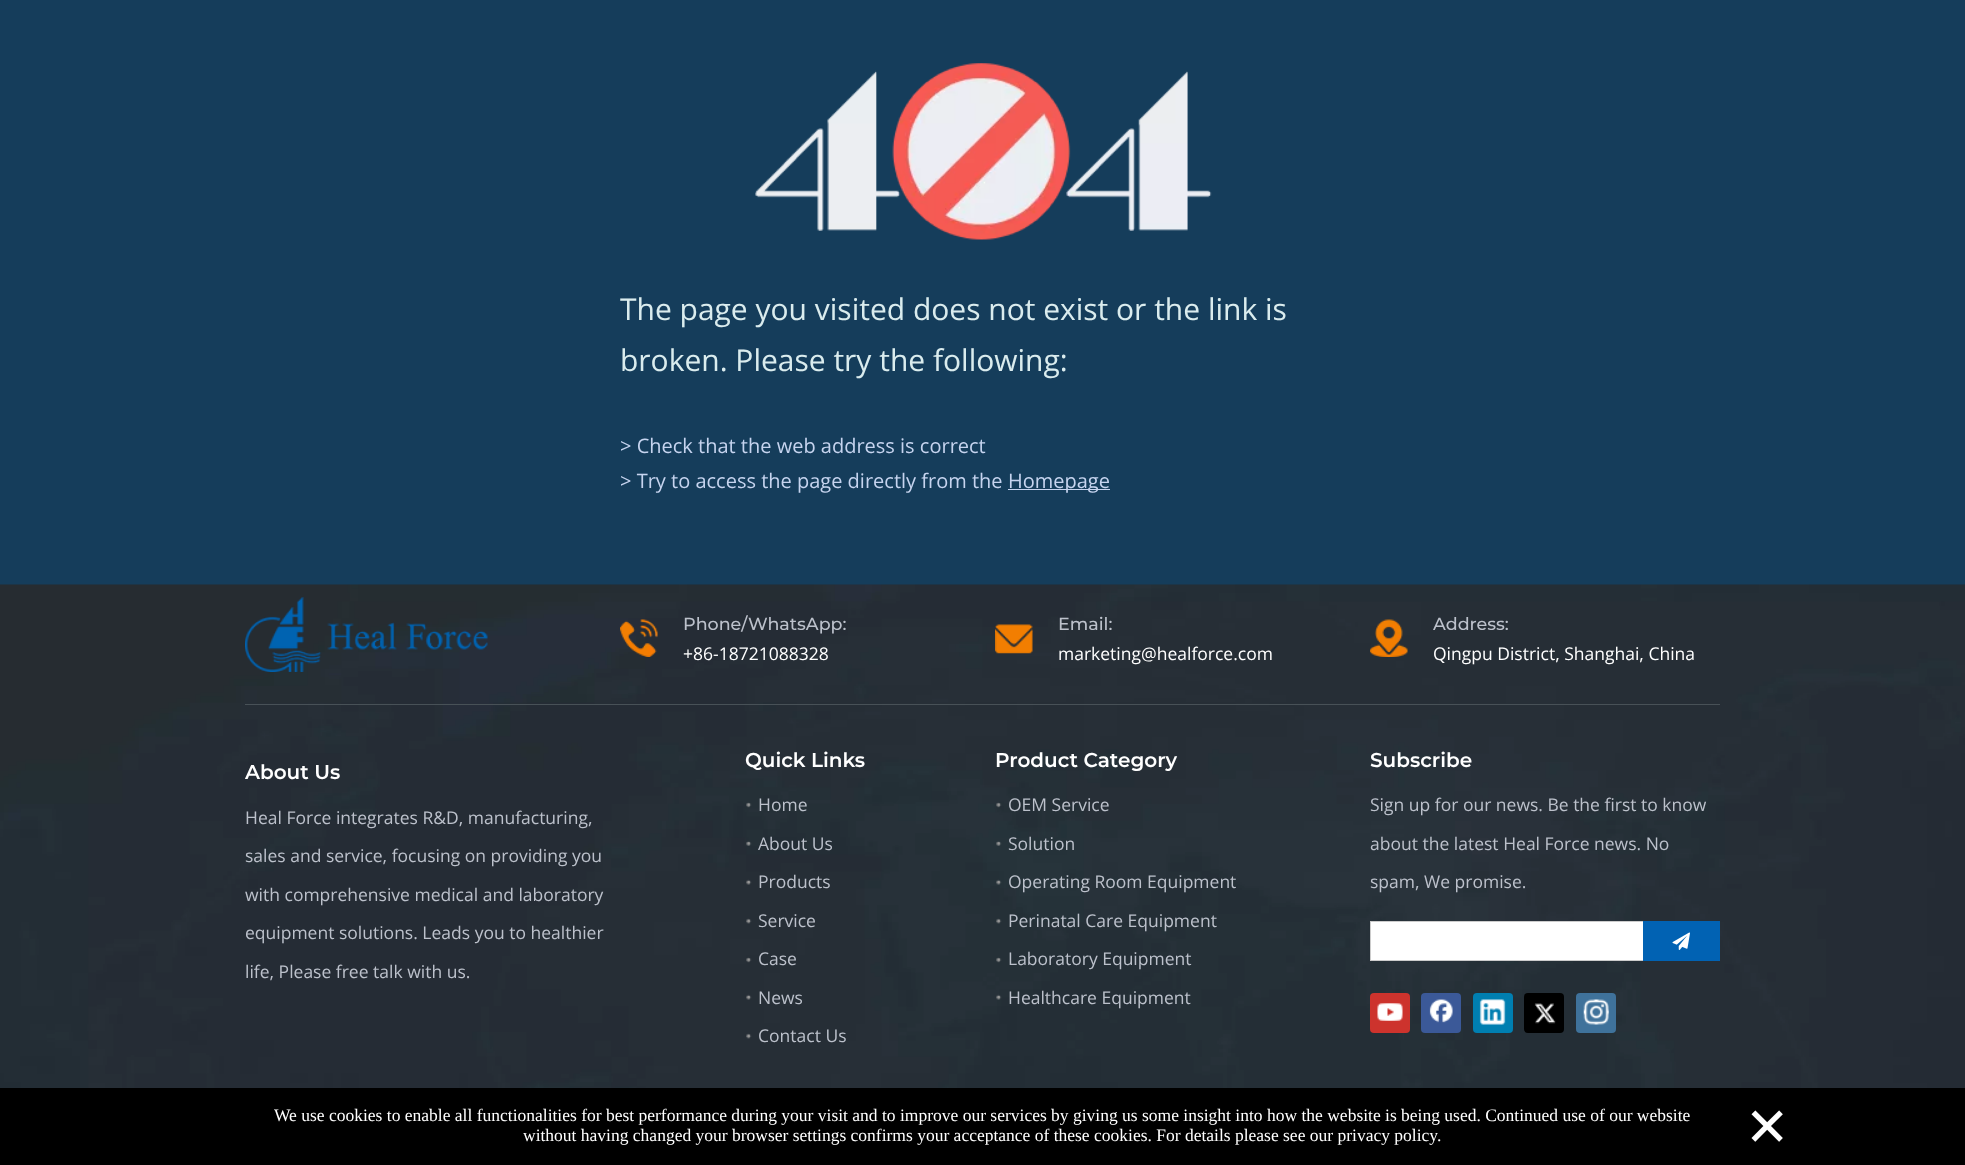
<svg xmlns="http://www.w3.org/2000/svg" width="1965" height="1165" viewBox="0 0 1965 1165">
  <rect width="100%" height="100%" fill="#153d5b"/>
  <image x="755" y="63" width="457" height="177" href="img1.png"/>
  <text x="620" y="320" font-family="Open Sans" font-size="30" fill="#daecee">The page you visited does not exist or the link is</text>
  <text x="620" y="371" font-family="Open Sans" font-size="30" fill="#daecee">broken. Please try the following:</text>
  <text x="620" y="453" font-family="Open Sans" font-size="20" fill="#c6d4ef">&gt; Check that the web address is correct</text>
  <text x="620" y="488" font-family="Open Sans" font-size="20" fill="#c6d4ef">&gt; Try to access the page directly from the</text>
  <rect x="1008" y="489" width="102" height="1" fill="#c6d4ef"/>
  <text x="1008" y="488" font-family="Open Sans" font-size="20" fill="#c6d4ef">Homepage</text>
  <image x="0" y="584" width="1965" height="504" href="img2.png"/>
  <image x="245" y="597" width="243" height="75" href="img3.png"/>
  <image x="620" y="619" width="38" height="38" href="img4.png"/>
  <text x="683" y="630" font-family="Montserrat" font-size="17.5" font-weight="500" fill="#bcc1cb">Phone/WhatsApp:</text>
  <text x="683" y="660" font-family="Open Sans" font-size="17.5" fill="#ffffff">+86-18721088328</text>
  <image x="995" y="624" width="38" height="30" href="img5.png"/>
  <text x="1058" y="630" font-family="Montserrat" font-size="17.5" font-weight="500" fill="#bcc1cb">Email:</text>
  <text x="1058" y="660" font-family="Open Sans" font-size="17.5" fill="#ffffff">marketing@healforce.com</text>
  <image x="1370" y="619" width="38" height="38" href="img6.png"/>
  <text x="1433" y="630" font-family="Montserrat" font-size="17.5" font-weight="500" fill="#bcc1cb">Address:</text>
  <text x="1433" y="660" font-family="Open Sans" font-size="17.5" fill="#ffffff">Qingpu District, Shanghai, China</text>
  <rect x="245" y="704" width="1475" height="1" fill="#485157"/>
  <text x="245" y="779" font-family="Montserrat" font-size="20" font-weight="600" fill="#ffffff">About Us</text>
  <text x="245" y="824" font-family="Open Sans" font-size="17.5" fill="#bcc1cb">Heal Force integrates R&amp;D, manufacturing,</text>
  <text x="245" y="862" font-family="Open Sans" font-size="17.5" fill="#bcc1cb">sales and service, focusing on providing you</text>
  <text x="245" y="901" font-family="Open Sans" font-size="17.5" fill="#bcc1cb">with comprehensive medical and laboratory</text>
  <text x="245" y="939" font-family="Open Sans" font-size="17.5" fill="#bcc1cb">equipment solutions. Leads you to healthier</text>
  <text x="245" y="978" font-family="Open Sans" font-size="17.5" fill="#bcc1cb">life, Please free talk with us.</text>
  <text x="745" y="767" font-family="Montserrat" font-size="20" font-weight="600" fill="#ffffff">Quick Links</text>
  <image x="746" y="802" width="6" height="6" href="img7.png"/>
  <text x="758" y="811" font-family="Open Sans" font-size="17.5" fill="#bcc1cb">Home</text>
  <image x="746" y="841" width="6" height="5" href="img8.png"/>
  <text x="758" y="850" font-family="Open Sans" font-size="17.5" fill="#bcc1cb">About Us</text>
  <image x="746" y="879" width="6" height="6" href="img9.png"/>
  <text x="758" y="888" font-family="Open Sans" font-size="17.5" fill="#bcc1cb">Products</text>
  <image x="746" y="918" width="6" height="6" href="img10.png"/>
  <text x="758" y="927" font-family="Open Sans" font-size="17.5" fill="#bcc1cb">Service</text>
  <image x="746" y="957" width="6" height="6" href="img11.png"/>
  <text x="758" y="965" font-family="Open Sans" font-size="17.5" fill="#bcc1cb">Case</text>
  <image x="746" y="994" width="6" height="6" href="img9.png"/>
  <text x="758" y="1004" font-family="Open Sans" font-size="17.5" fill="#bcc1cb">News</text>
  <image x="746" y="1033" width="6" height="6" href="img10.png"/>
  <text x="758" y="1042" font-family="Open Sans" font-size="17.5" fill="#bcc1cb">Contact Us</text>
  <text x="995" y="767" font-family="Montserrat" font-size="20" font-weight="600" fill="#ffffff">Product Category</text>
  <image x="996" y="802" width="6" height="6" href="img12.png"/>
  <text x="1008" y="811" font-family="Open Sans" font-size="17.5" fill="#bcc1cb">OEM Service</text>
  <image x="996" y="841" width="6" height="5" href="img13.png"/>
  <text x="1008" y="850" font-family="Open Sans" font-size="17.5" fill="#bcc1cb">Solution</text>
  <image x="996" y="879" width="6" height="6" href="img14.png"/>
  <text x="1008" y="888" font-family="Open Sans" font-size="17.5" fill="#bcc1cb">Operating Room Equipment</text>
  <image x="996" y="918" width="6" height="6" href="img15.png"/>
  <text x="1008" y="927" font-family="Open Sans" font-size="17.5" fill="#bcc1cb">Perinatal Care Equipment</text>
  <image x="996" y="957" width="6" height="6" href="img16.png"/>
  <text x="1008" y="965" font-family="Open Sans" font-size="17.5" fill="#bcc1cb">Laboratory Equipment</text>
  <image x="996" y="994" width="6" height="6" href="img17.png"/>
  <text x="1008" y="1004" font-family="Open Sans" font-size="17.5" fill="#bcc1cb">Healthcare Equipment</text>
  <text x="1370" y="767" font-family="Montserrat" font-size="20" font-weight="600" fill="#ffffff">Subscribe</text>
  <text x="1370" y="811" font-family="Open Sans" font-size="17.5" fill="#bcc1cb">Sign up for our news. Be the first to know</text>
  <text x="1370" y="850" font-family="Open Sans" font-size="17.5" fill="#bcc1cb">about the latest Heal Force news. No</text>
  <text x="1370" y="888" font-family="Open Sans" font-size="17.5" fill="#bcc1cb">spam, We promise.</text>
  <rect x="1371" y="922" width="272" height="38" fill="#ffffff"/>
  <rect x="1370.5" y="921.5" width="349" height="39" fill="none" stroke="#cccccc"/>
  <rect x="1643" y="921" width="77" height="40" fill="#0162b3"/>
  <image x="1672" y="932" width="18" height="18" href="img18.png"/>
  <rect x="1370" y="993" width="40" height="40" rx="4" fill="#cd332d"/>
  <image x="1377" y="1003" width="26" height="18" href="img19.png"/>
  <rect x="1421" y="993" width="40" height="40" rx="4" fill="#3b5998"/>
  <image x="1429" y="999" width="24" height="24" href="img20.png"/>
  <rect x="1473" y="993" width="40" height="40" rx="4" fill="#007fb1"/>
  <image x="1479" y="999" width="27" height="26" href="img21.png"/>
  <rect x="1524" y="993" width="40" height="40" rx="4" fill="#000000"/>
  <image x="1534" y="1003" width="22" height="21" href="img22.png"/>
  <rect x="1576" y="993" width="40" height="40" rx="4" fill="#3f729b"/>
  <image x="1583" y="999" width="26" height="26" href="img23.png"/>
  <rect x="0" y="1088" width="1965" height="77" fill="#000000"/>
  <text x="274" y="1121" font-family="Liberation Serif" font-size="17.5" fill="#ffffff">We use cookies to enable all functionalities for best performance during your visit and to improve our services by giving us some insight into how the website is being used. Continued use of our website</text>
  <text x="523" y="1141" font-family="Liberation Serif" font-size="17.5" fill="#ffffff">without having changed your browser settings confirms your acceptance of these cookies. For details please see our privacy policy.</text>
  <text x="1746" y="1151" font-family="Liberation Serif" font-size="75" font-weight="bold" fill="#ffffff">×</text>
</svg>
